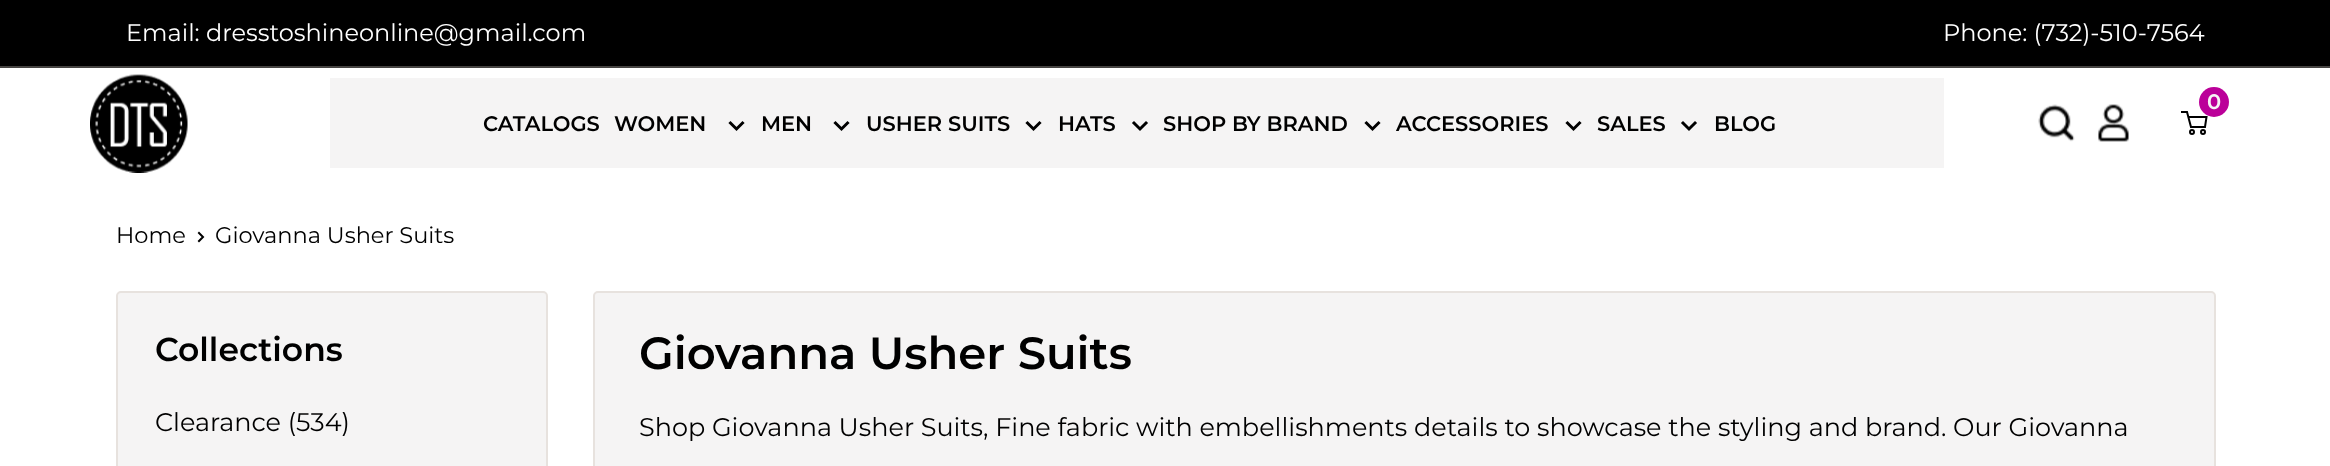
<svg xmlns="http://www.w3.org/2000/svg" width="2330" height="466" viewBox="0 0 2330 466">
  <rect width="100%" height="100%" fill="#ffffff"/>
  <rect x="0" y="0" width="2330" height="66" fill="#000000"/>
  <rect x="0" y="66" width="2330" height="2" fill="#464442"/>
  <text x="126" y="41" font-family="Montserrat" font-size="24" fill="#ffffff">Email: dresstoshineonline@gmail.com</text>
  <text x="1943" y="41" font-family="Montserrat" font-size="24" fill="#ffffff">Phone: (732)-510-7564</text>
  <image x="90" y="74" width="98" height="99" href="img1.png"/>
  <path d="M2188.5 117H2206.5L2205 127H2191L2187 112H2181" fill="none" stroke="#000000" stroke-width="2"/>
  <circle cx="2214" cy="102" r="15" fill="#bb0099"/>
  <text x="2207" y="109" font-family="Montserrat" font-size="21" font-weight="600" fill="#f5f4f4">0</text>
  <circle cx="2192" cy="132" r="2" fill="none" stroke="#000000" stroke-width="2"/>
  <circle cx="2203" cy="132" r="2" fill="none" stroke="#000000" stroke-width="2"/>
  <image x="2038" y="104" width="37" height="38" href="img2.png"/>
  <image x="2098" y="104" width="31" height="38" href="img3.png"/>
  <rect x="330" y="78" width="1614" height="90" fill="#f5f4f4"/>
  <text x="483" y="131" font-family="Montserrat" font-size="21" font-weight="600" fill="#000000">CATALOGS</text>
  <text x="614" y="131" font-family="Montserrat" font-size="21" font-weight="600" fill="#000000">WOMEN</text>
  <path d="M742.5 123L736.5 129L730.5 123" fill="none" stroke="#000000" stroke-width="3" stroke-linecap="square"/>
  <text x="761" y="131" font-family="Montserrat" font-size="21" font-weight="600" fill="#000000">MEN</text>
  <path d="M847.5 123L841.5 129L835.5 123" fill="none" stroke="#000000" stroke-width="3" stroke-linecap="square"/>
  <text x="866" y="131" font-family="Montserrat" font-size="21" font-weight="600" fill="#000000">USHER SUITS</text>
  <path d="M1039.5 123L1033.5 129L1027.5 123" fill="none" stroke="#000000" stroke-width="3" stroke-linecap="square"/>
  <text x="1058" y="131" font-family="Montserrat" font-size="21" font-weight="600" fill="#000000">HATS</text>
  <path d="M1146 123L1140 129L1134 123" fill="none" stroke="#000000" stroke-width="3" stroke-linecap="square"/>
  <text x="1163" y="131" font-family="Montserrat" font-size="21" font-weight="600" fill="#000000">SHOP BY BRAND</text>
  <path d="M1378.5 123L1372.5 129L1366.5 123" fill="none" stroke="#000000" stroke-width="3" stroke-linecap="square"/>
  <text x="1396" y="131" font-family="Montserrat" font-size="21" font-weight="600" fill="#000000">ACCESSORIES</text>
  <path d="M1579.5 123L1573.5 129L1567.5 123" fill="none" stroke="#000000" stroke-width="3" stroke-linecap="square"/>
  <text x="1597" y="131" font-family="Montserrat" font-size="21" font-weight="600" fill="#000000">SALES</text>
  <path d="M1695 123L1689 129L1683 123" fill="none" stroke="#000000" stroke-width="3" stroke-linecap="square"/>
  <text x="1714" y="131" font-family="Montserrat" font-size="21" font-weight="600" fill="#000000">BLOG</text>
  <text x="116" y="243" font-family="Montserrat" font-size="22.5" fill="#000000">Home</text>
  <path d="M199 233L203 237L199 241" fill="none" stroke="#000000" stroke-width="2" stroke-linecap="square"/>
  <text x="215" y="243" font-family="Montserrat" font-size="22.5" fill="#000000">Giovanna Usher Suits</text>
  <rect x="117" y="292" width="430" height="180" rx="4" fill="#f5f4f4" stroke="#e7e2de" stroke-width="2"/>
  <text x="155" y="361" font-family="Montserrat" font-size="33" font-weight="600" fill="#000000">Collections</text>
  <text x="155" y="431" font-family="Montserrat" font-size="25.5" fill="#000000">Clearance (534)</text>
  <rect x="594" y="292" width="1621" height="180" rx="4" fill="#f5f4f4" stroke="#e7e2de" stroke-width="2"/>
  <text x="639" y="369" font-family="Montserrat" font-size="45" font-weight="600" fill="#000000">Giovanna Usher Suits</text>
  <text x="639" y="436" font-family="Montserrat" font-size="25.5" fill="#000000">Shop Giovanna Usher Suits, Fine fabric with embellishments details to showcase the styling and brand. Our Giovanna</text>
</svg>
